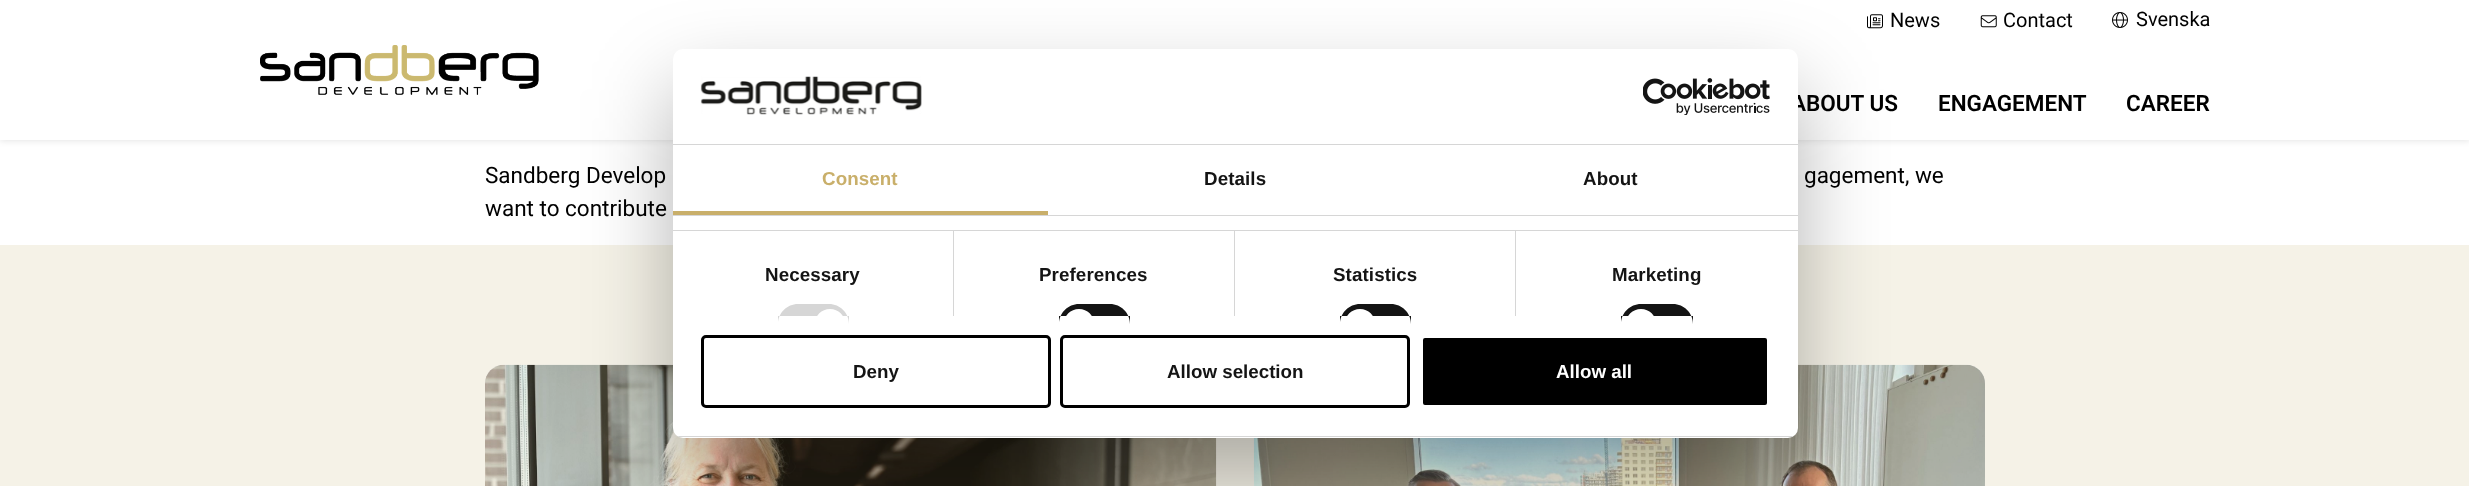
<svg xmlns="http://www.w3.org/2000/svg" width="2469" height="486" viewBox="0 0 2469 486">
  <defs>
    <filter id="blur1" x="-50%" y="-200%" width="200%" height="500%"><feGaussianBlur stdDeviation="3"/></filter>
    <filter id="blur2" x="-50%" y="-200%" width="200%" height="500%"><feGaussianBlur stdDeviation="42.5"/></filter>
    <clipPath id="clip1"><rect x="673" y="49" width="1125" height="389" rx="10"/></clipPath>
  </defs>
  <rect width="100%" height="100%" fill="#ffffff"/>
  <rect x="0" y="1" width="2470" height="140" fill="#000000" fill-opacity="0.1" filter="url(#blur1)"/>
  <rect x="0" y="0" width="2469" height="140" fill="#ffffff"/>
  <image x="260" y="45" width="279" height="50" href="img1.png"/>
  <image x="1867" y="14" width="16" height="15" href="img2.png"/>
  <text x="1890" y="27" font-family="Roboto" font-size="20" fill="#000000">News</text>
  <image x="1980" y="15" width="17" height="13" href="img3.png"/>
  <text x="2003" y="27" font-family="Roboto" font-size="20" fill="#000000">Contact</text>
  <image x="2112" y="12" width="16" height="16" href="img4.png"/>
  <text x="2136" y="26" font-family="Roboto" font-size="20" fill="#000000">Svenska</text>
  <text x="1791" y="111" font-family="Roboto" font-size="22.5" font-weight="600" fill="#000000">ABOUT US</text>
  <text x="1938" y="111" font-family="Roboto" font-size="22.5" font-weight="600" fill="#000000">ENGAGEMENT</text>
  <text x="2126" y="111" font-family="Roboto" font-size="22.5" font-weight="600" fill="#000000">CAREER</text>
  <text x="485" y="183" font-family="Roboto" font-size="22.5" fill="#000000">Sandberg Develop</text>
  <text x="1804" y="183" font-family="Roboto" font-size="22.5" fill="#000000">gagement, we</text>
  <text x="485" y="216" font-family="Roboto" font-size="22.5" fill="#000000">want to contribute</text>
  <rect x="0" y="245" width="2469" height="241" fill="#f5f2e7"/>
  <image x="485" y="364" width="732" height="122" href="img5.png"/>
  <rect x="485" y="365" width="731" height="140" rx="19" fill="#c9af6a" fill-opacity="0.15"/>
  <image x="1253" y="364" width="732" height="122" href="img6.png"/>
  <rect x="1254" y="365" width="731" height="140" rx="19" fill="#c9af6a" fill-opacity="0.15"/>
  <rect x="673" y="89" width="1125" height="389" rx="10" fill="#000000" fill-opacity="0.3" filter="url(#blur2)"/>
  <rect x="673" y="49" width="1125" height="389" rx="10" fill="#ffffff"/>
  <rect x="673" y="144" width="1125" height="1" fill="#d6d6d6"/>
  <image x="700" y="76" width="222" height="39" href="img7.png"/>
  <image x="1643" y="78" width="127" height="37" href="img8.png"/>
  <rect x="673" y="215" width="1125" height="1" fill="#d6d6d6"/>
  <rect x="673" y="211" width="375" height="4" fill="#c9af6a"/>
  <text x="822" y="185" font-family="Liberation Sans" font-size="18.75" font-weight="bold" letter-spacing="0.1" fill="#c9af6a">Consent</text>
  <text x="1204" y="185" font-family="Liberation Sans" font-size="18.75" font-weight="bold" letter-spacing="0.1" fill="#141414">Details</text>
  <text x="1583" y="185" font-family="Liberation Sans" font-size="18.75" font-weight="bold" letter-spacing="0.1" fill="#141414">About</text>
  <rect x="673" y="230" width="1125" height="1" fill="#d6d6d6"/>
  <rect x="953" y="231" width="1" height="85" fill="#d6d6d6"/>
  <text x="765" y="281" font-family="Liberation Sans" font-size="18.75" font-weight="bold" letter-spacing="0.1" fill="#141414">Necessary</text>
  <path d="M798 304H829C840 304 849 313 849 324V316H778V324C778 313 787 304 798 304Z" fill="#d6d6d6"/>
  <path d="M830 309C838.5 309 845 315.5 845 324V316H815V324C815 315.5 821.5 309 830 309Z" fill="#ffffff"/>
  <rect x="1234" y="231" width="1" height="85" fill="#d6d6d6"/>
  <text x="1039" y="281" font-family="Liberation Sans" font-size="18.75" font-weight="bold" letter-spacing="0.1" fill="#141414">Preferences</text>
  <path d="M1079 304H1110C1121 304 1130 313 1130 324V316H1059V324C1059 313 1068 304 1079 304Z" fill="#141414"/>
  <path d="M1079 309C1087.5 309 1094 315.5 1094 324V316H1064V324C1064 315.5 1070.5 309 1079 309Z" fill="#ffffff"/>
  <rect x="1515" y="231" width="1" height="85" fill="#d6d6d6"/>
  <text x="1333" y="281" font-family="Liberation Sans" font-size="18.75" font-weight="bold" letter-spacing="0.1" fill="#141414">Statistics</text>
  <path d="M1360 304H1391C1402 304 1411 313 1411 324V316H1340V324C1340 313 1349 304 1360 304Z" fill="#141414"/>
  <path d="M1360 309C1368.5 309 1375 315.5 1375 324V316H1345V324C1345 315.5 1351.5 309 1360 309Z" fill="#ffffff"/>
  <text x="1612" y="281" font-family="Liberation Sans" font-size="18.75" font-weight="bold" letter-spacing="0.1" fill="#141414">Marketing</text>
  <path d="M1641 304H1673C1684 304 1693 313 1693 324V316H1621V324C1621 313 1630 304 1641 304Z" fill="#141414"/>
  <path d="M1641 309C1649.5 309 1656 315.5 1656 324V316H1626V324C1626 315.5 1632.5 309 1641 309Z" fill="#ffffff"/>
  <g clip-path="url(#clip1)">
    <rect x="673" y="436" width="1125" height="1" fill="#d6d6d6"/>
  </g>
  <rect x="702.5" y="336.5" width="347" height="70" rx="3.5" fill="none" stroke="#000000" stroke-width="3"/>
  <text x="853" y="378" font-family="Liberation Sans" font-size="18.75" font-weight="bold" fill="#141414">Deny</text>
  <rect x="1061.5" y="336.5" width="347" height="70" rx="3.5" fill="none" stroke="#000000" stroke-width="3"/>
  <text x="1167" y="378" font-family="Liberation Sans" font-size="18.75" font-weight="bold" fill="#141414">Allow selection</text>
  <rect x="1421.5" y="336.5" width="347" height="70" rx="3.5" fill="#000000" stroke="#ffffff" stroke-width="3"/>
  <text x="1556" y="378" font-family="Liberation Sans" font-size="18.75" font-weight="bold" fill="#ffffff">Allow all</text>
</svg>
